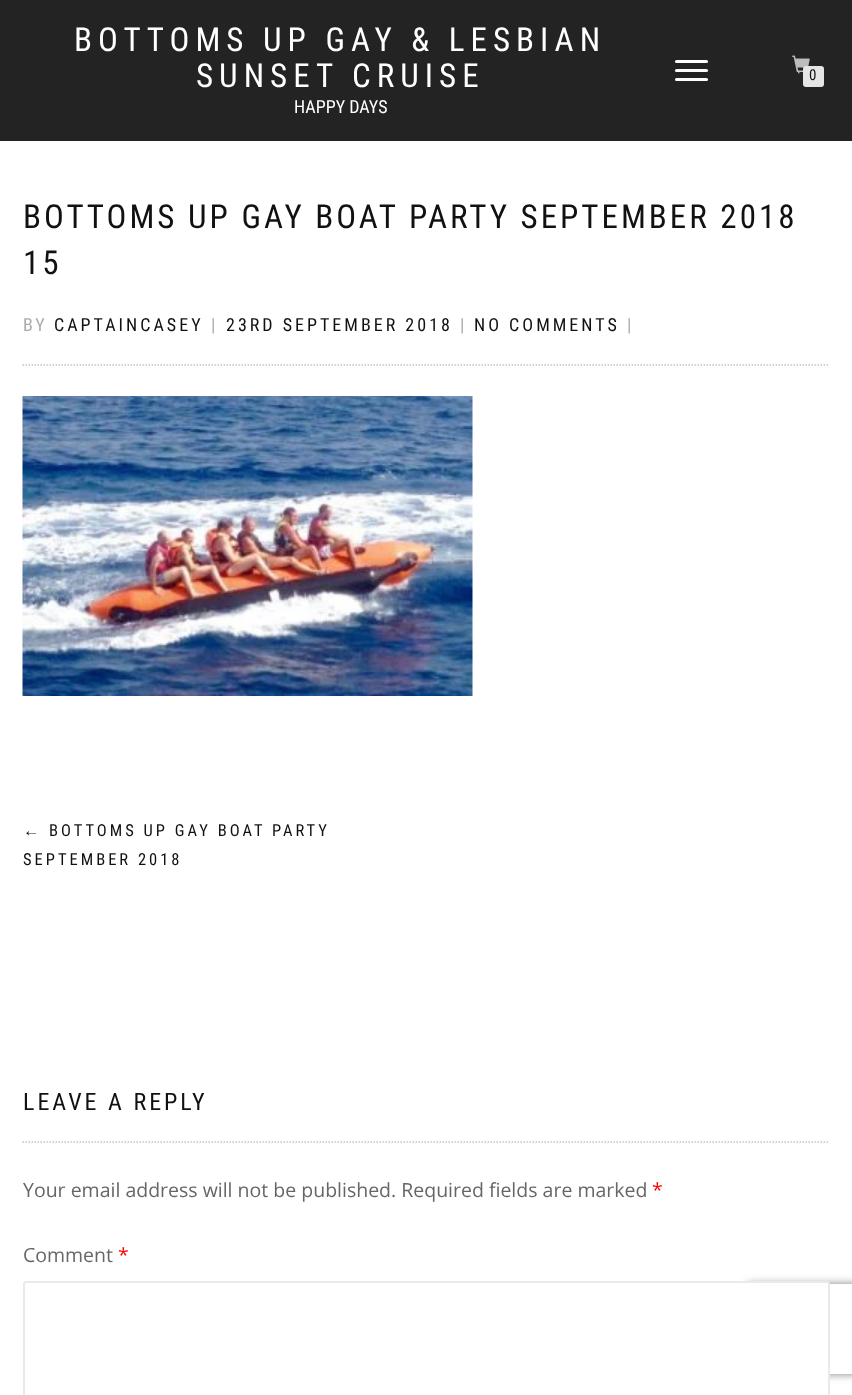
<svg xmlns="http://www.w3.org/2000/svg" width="852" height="1395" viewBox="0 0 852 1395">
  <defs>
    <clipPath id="clip1"><path d="M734 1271H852V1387H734ZM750 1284H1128C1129.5 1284 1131 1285.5 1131 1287V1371C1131 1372.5 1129.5 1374 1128 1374H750C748.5 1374 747 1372.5 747 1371V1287C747 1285.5 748.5 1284 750 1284Z" clip-rule="evenodd"/></clipPath>
    <filter id="blur1" x="-50%" y="-200%" width="200%" height="500%"><feGaussianBlur stdDeviation="4"/></filter>
  </defs>
  <rect width="100%" height="100%" fill="#ffffff"/>
  <rect x="0" y="0" width="852" height="141" fill="#232323"/>
  <text x="74" y="51" font-family="Roboto Condensed" font-size="33" letter-spacing="6" fill="#ffffff">BOTTOMS UP GAY &amp; LESBIAN</text>
  <text x="196" y="87" font-family="Roboto Condensed" font-size="33" letter-spacing="6" fill="#ffffff">SUNSET CRUISE</text>
  <text x="294" y="113" font-family="Roboto Condensed" font-size="18" fill="#ffffff">HAPPY DAYS</text>
  <rect x="675" y="60" width="33" height="3" rx="1.5" fill="#ffffff"/>
  <rect x="675" y="69" width="33" height="3" rx="1.5" fill="#ffffff"/>
  <rect x="675" y="78" width="33" height="3" rx="1.5" fill="#ffffff"/>
  <image x="792" y="55" width="18" height="19" href="img1.png"/>
  <rect x="803" y="66" width="21" height="21" rx="3" fill="#e5e5e5"/>
  <text x="809" y="80" font-family="Roboto Condensed" font-size="15" fill="#111111">0</text>
  <text x="23" y="228" font-family="Roboto Condensed" font-size="33" letter-spacing="3" fill="#111111">BOTTOMS UP GAY BOAT PARTY SEPTEMBER 2018</text>
  <text x="23" y="274" font-family="Roboto Condensed" font-size="33" letter-spacing="3" fill="#111111">15</text>
  <text x="23" y="331" font-family="Roboto Condensed" font-size="18" letter-spacing="3" fill="#aaaaaa">BY</text>
  <text x="54" y="331" font-family="Roboto Condensed" font-size="18" letter-spacing="3" fill="#111111">CAPTAINCASEY</text>
  <text x="211" y="331" font-family="Roboto Condensed" font-size="18" letter-spacing="3" fill="#aaaaaa">|</text>
  <text x="226" y="331" font-family="Roboto Condensed" font-size="18" letter-spacing="3" fill="#111111">23RD SEPTEMBER 2018</text>
  <text x="460" y="331" font-family="Roboto Condensed" font-size="18" letter-spacing="3" fill="#aaaaaa">|</text>
  <text x="474" y="331" font-family="Roboto Condensed" font-size="18" letter-spacing="3" fill="#111111">NO COMMENTS</text>
  <text x="627" y="331" font-family="Roboto Condensed" font-size="18" letter-spacing="3" fill="#aaaaaa">|</text>
  <path d="M22.5 365H829.5" fill="none" stroke="#c2c2c2" stroke-width="1.5" stroke-dasharray="1.5 1.5"/>
  <image x="22" y="396" width="451" height="300" href="img2.png"/>
  <text x="23" y="836" font-family="Liberation Sans" font-size="16.5" letter-spacing="3" fill="#111111">←</text>
  <text x="49" y="836" font-family="Roboto Condensed" font-size="16.5" letter-spacing="3" fill="#111111">BOTTOMS UP GAY BOAT PARTY</text>
  <text x="23" y="865" font-family="Roboto Condensed" font-size="16.5" letter-spacing="3" fill="#111111">SEPTEMBER 2018</text>
  <path d="M22.5 1142H829.5" fill="none" stroke="#c2c2c2" stroke-width="1.5" stroke-dasharray="1.5 1.5"/>
  <text x="23" y="1110" font-family="Roboto Condensed" font-size="24" letter-spacing="3" fill="#111111">LEAVE A REPLY</text>
  <text x="23" y="1197" font-family="Open Sans" font-size="19.5" fill="#666666">Your email address will not be published. Required fields are marked</text>
  <text x="652" y="1197" font-family="Open Sans" font-size="19.5" fill="#ff0000">*</text>
  <text x="23" y="1262" font-family="Open Sans" font-size="19.5" fill="#666666">Comment</text>
  <text x="118" y="1262" font-family="Open Sans" font-size="19.5" fill="#ff0000">*</text>
  <g clip-path="url(#clip1)">
    <rect x="747" y="1284" width="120" height="90" rx="3" fill="#808080" filter="url(#blur1)"/>
  </g>
  <rect x="24" y="1282" width="805" height="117" rx="2" fill="#ffffff" stroke="#eaeaea" stroke-width="2"/>
</svg>
